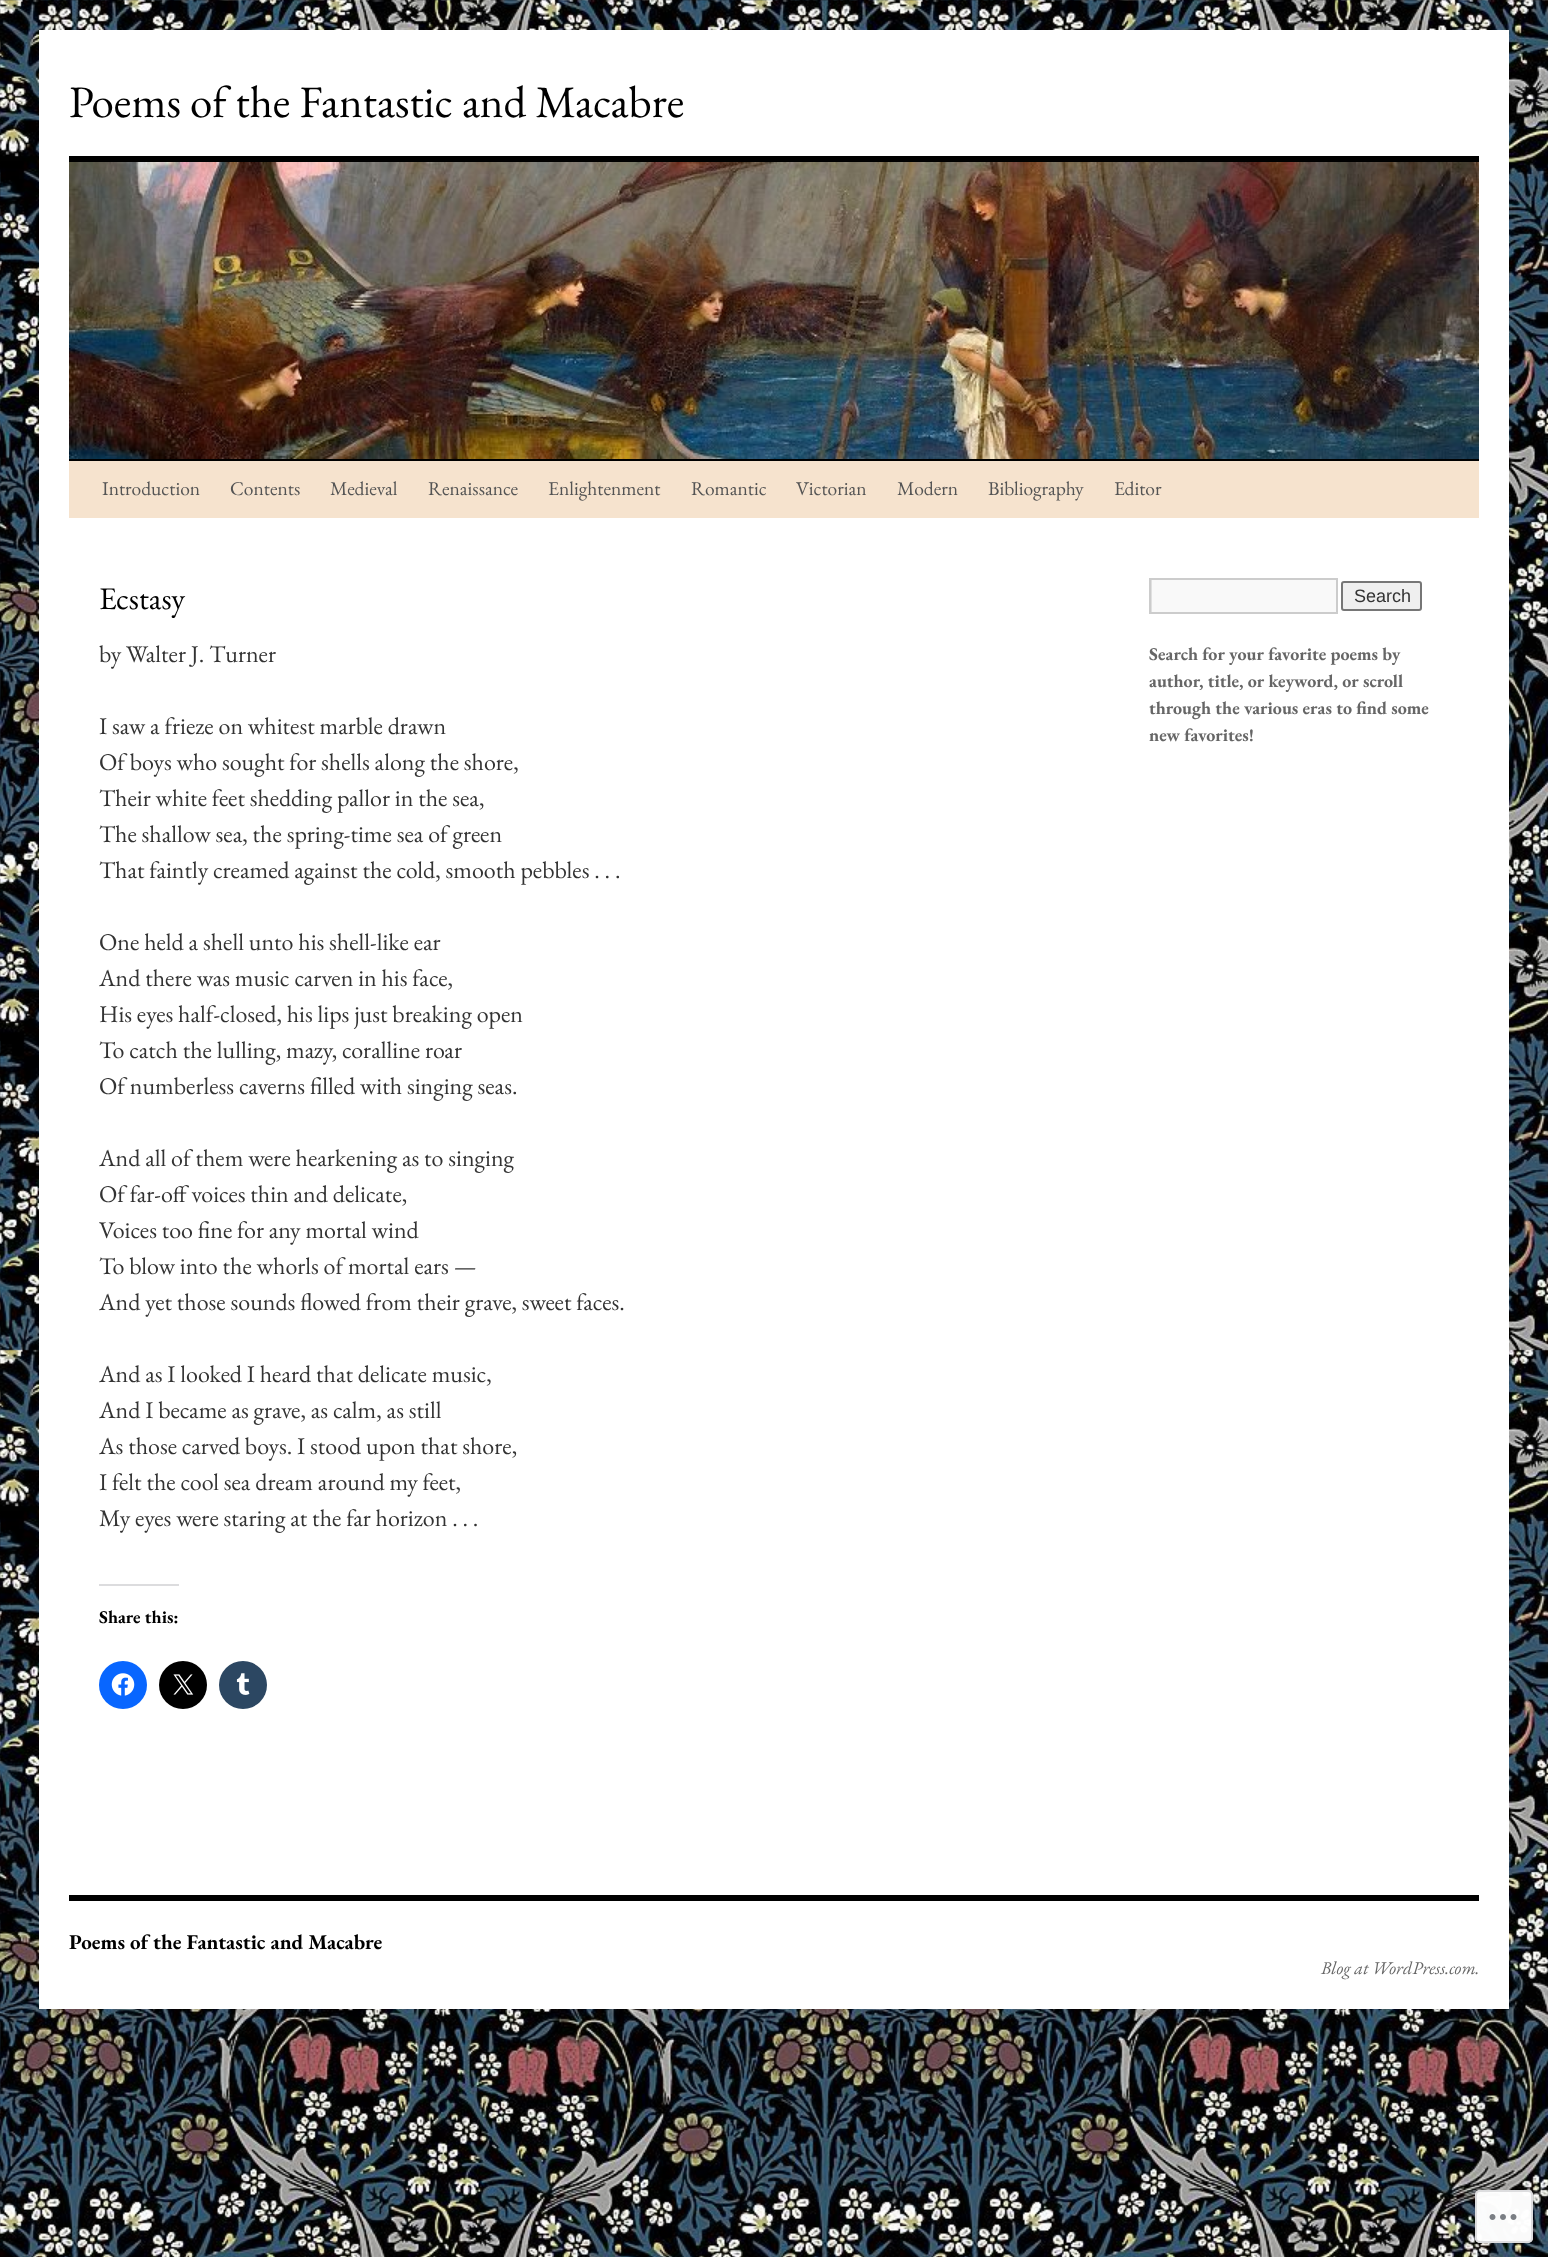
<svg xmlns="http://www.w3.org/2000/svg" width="1548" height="2257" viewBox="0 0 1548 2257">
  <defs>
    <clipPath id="clip1"><rect x="1151" y="579" width="186" height="33"/></clipPath>
  </defs>
  <rect width="100%" height="100%" fill="#ffffff"/>
  <image x="0" y="0" width="1548" height="2257" href="img1.png"/>
  <rect x="39" y="30" width="1470" height="1979" fill="#ffffff"/>
  <text x="69" y="117" font-family="EB Garamond" font-size="45" fill="#000000">Poems of the Fantastic and Macabre</text>
  <rect x="69" y="156" width="1410" height="6" fill="#000000"/>
  <rect x="69" y="459" width="1410" height="2" fill="#000000"/>
  <image x="69" y="162" width="1410" height="297" href="img2.png"/>
  <rect x="69" y="461" width="1410" height="57" fill="#f6e3ce"/>
  <text x="102" y="495" font-family="EB Garamond" font-size="19.5" fill="#545454">Introduction</text>
  <text x="230" y="495" font-family="EB Garamond" font-size="19.5" fill="#545454">Contents</text>
  <text x="330" y="495" font-family="EB Garamond" font-size="19.5" fill="#545454">Medieval</text>
  <text x="428" y="495" font-family="EB Garamond" font-size="19.5" fill="#545454">Renaissance</text>
  <text x="548" y="495" font-family="EB Garamond" font-size="19.5" fill="#545454">Enlightenment</text>
  <text x="691" y="495" font-family="EB Garamond" font-size="19.5" fill="#545454">Romantic</text>
  <text x="796" y="495" font-family="EB Garamond" font-size="19.5" fill="#545454">Victorian</text>
  <text x="897" y="495" font-family="EB Garamond" font-size="19.5" fill="#545454">Modern</text>
  <text x="988" y="495" font-family="EB Garamond" font-size="19.5" fill="#545454">Bibliography</text>
  <text x="1114" y="495" font-family="EB Garamond" font-size="19.5" fill="#545454">Editor</text>
  <text x="99" y="609" font-family="EB Garamond" font-size="31.5" fill="#000000">Ecstasy</text>
  <text x="99" y="662" font-family="EB Garamond" font-size="24" fill="#333333">by Walter J. Turner</text>
  <text x="99" y="734" font-family="EB Garamond" font-size="24" fill="#333333">I saw a frieze on whitest marble drawn</text>
  <text x="99" y="770" font-family="EB Garamond" font-size="24" fill="#333333">Of boys who sought for shells along the shore,</text>
  <text x="99" y="806" font-family="EB Garamond" font-size="24" fill="#333333">Their white feet shedding pallor in the sea,</text>
  <text x="99" y="842" font-family="EB Garamond" font-size="24" fill="#333333">The shallow sea, the spring-time sea of green</text>
  <text x="99" y="878" font-family="EB Garamond" font-size="24" fill="#333333">That faintly creamed against the cold, smooth pebbles . . .</text>
  <text x="99" y="950" font-family="EB Garamond" font-size="24" fill="#333333">One held a shell unto his shell-like ear</text>
  <text x="99" y="986" font-family="EB Garamond" font-size="24" fill="#333333">And there was music carven in his face,</text>
  <text x="99" y="1022" font-family="EB Garamond" font-size="24" fill="#333333">His eyes half-closed, his lips just breaking open</text>
  <text x="99" y="1058" font-family="EB Garamond" font-size="24" fill="#333333">To catch the lulling, mazy, coralline roar</text>
  <text x="99" y="1094" font-family="EB Garamond" font-size="24" fill="#333333">Of numberless caverns filled with singing seas.</text>
  <text x="99" y="1166" font-family="EB Garamond" font-size="24" fill="#333333">And all of them were hearkening as to singing</text>
  <text x="99" y="1202" font-family="EB Garamond" font-size="24" fill="#333333">Of far-off voices thin and delicate,</text>
  <text x="99" y="1238" font-family="EB Garamond" font-size="24" fill="#333333">Voices too fine for any mortal wind</text>
  <text x="99" y="1274" font-family="EB Garamond" font-size="24" fill="#333333">To blow into the whorls of mortal ears —</text>
  <text x="99" y="1310" font-family="EB Garamond" font-size="24" fill="#333333">And yet those sounds flowed from their grave, sweet faces.</text>
  <text x="99" y="1382" font-family="EB Garamond" font-size="24" fill="#333333">And as I looked I heard that delicate music,</text>
  <text x="99" y="1418" font-family="EB Garamond" font-size="24" fill="#333333">And I became as grave, as calm, as still</text>
  <text x="99" y="1454" font-family="EB Garamond" font-size="24" fill="#333333">As those carved boys. I stood upon that shore,</text>
  <text x="99" y="1490" font-family="EB Garamond" font-size="24" fill="#333333">I felt the cool sea dream around my feet,</text>
  <text x="99" y="1526" font-family="EB Garamond" font-size="24" fill="#333333">My eyes were staring at the far horizon . . .</text>
  <rect x="99" y="1584" width="80" height="2" fill="#dcdcde"/>
  <text x="99" y="1623" font-family="EB Garamond" font-size="18" font-weight="bold" fill="#000000">Share this:</text>
  <circle cx="123" cy="1685" r="24" fill="#0866ff"/>
  <image x="111" y="1673" width="24" height="23" href="img3.png"/>
  <circle cx="183" cy="1685" r="24" fill="#000000"/>
  <image x="173" y="1674" width="21" height="21" href="img4.png"/>
  <circle cx="243" cy="1685" r="24" fill="#2c4762"/>
  <image x="236" y="1673" width="14" height="22" href="img5.png"/>
  <rect x="1152" y="580" width="184" height="32" fill="#f9f9f9"/>
  <g clip-path="url(#clip1)">
    <path d="M1002 430H1485V760H1002ZM1152 580H1338V614H1152Z" fill="#e0e0e0" fill-rule="evenodd"/>
  </g>
  <rect x="1150" y="579" width="187" height="34" fill="none" stroke="#cccccc" stroke-width="2"/>
  <rect x="1342" y="582" width="79" height="28" rx="2" fill="#efefef" stroke="#767676" stroke-width="2"/>
  <text x="1354" y="602" font-family="Liberation Sans" font-size="18" fill="#333333">Search</text>
  <text x="1149" y="660" font-family="EB Garamond" font-size="18" font-weight="bold" fill="#666666">Search for your favorite poems by</text>
  <text x="1149" y="687" font-family="EB Garamond" font-size="18" font-weight="bold" fill="#666666">author, title, or keyword, or scroll</text>
  <text x="1149" y="714" font-family="EB Garamond" font-size="18" font-weight="bold" fill="#666666">through the various eras to find some</text>
  <text x="1149" y="741" font-family="EB Garamond" font-size="18" font-weight="bold" fill="#666666">new favorites!</text>
  <rect x="69" y="1895" width="1410" height="6" fill="#000000"/>
  <text x="69" y="1949" font-family="EB Garamond" font-size="21" font-weight="bold" fill="#000000">Poems of the Fantastic and Macabre</text>
  <text x="1321" y="1974" font-family="EB Garamond" font-size="18" font-style="italic" fill="#666666">Blog at WordPress.com.</text>
  <rect x="1475" y="2190" width="58" height="53" rx="5" fill="#ffffff" fill-opacity="0.98"/>
  <rect x="1476" y="2191" width="56" height="51" rx="4" fill="none" stroke="#dcdcde" stroke-opacity="0.98" stroke-width="2"/>
  <image x="1489" y="2214" width="28" height="6" href="img6.png"/>
</svg>
